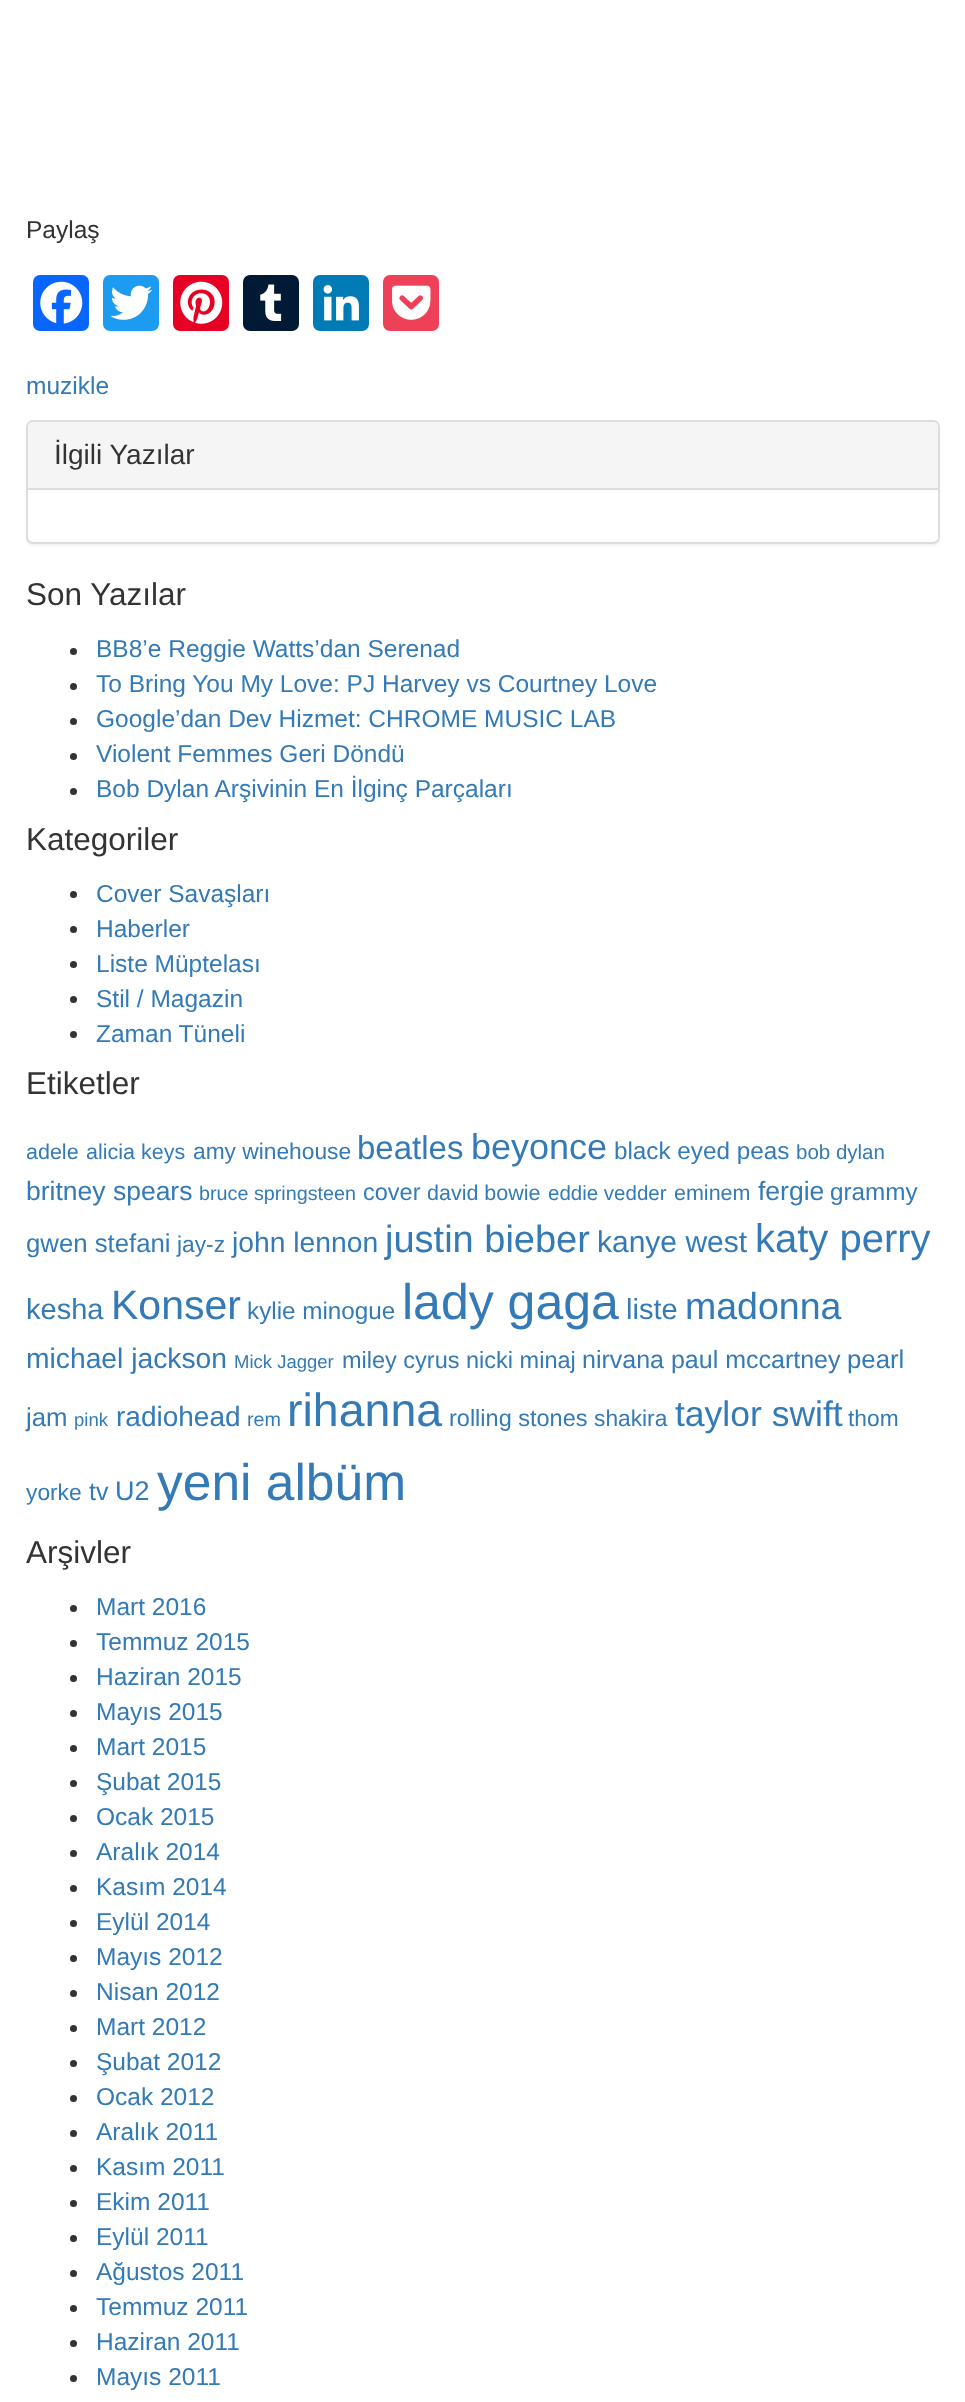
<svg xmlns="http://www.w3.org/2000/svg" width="965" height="2402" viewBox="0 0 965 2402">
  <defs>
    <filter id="blur1" x="-50%" y="-200%" width="200%" height="500%"><feGaussianBlur stdDeviation="1"/></filter>
  </defs>
  <rect width="100%" height="100%" fill="#ffffff"/>
  <text x="26" y="238" font-family="Liberation Sans" font-size="24.5" fill="#333333">Paylaş</text>
  <rect x="33" y="275" width="56" height="56" rx="7" fill="#0866ff"/>
  <image x="40" y="281" width="43" height="43" href="img1.png"/>
  <rect x="103" y="275" width="56" height="56" rx="7" fill="#1d9bf0"/>
  <image x="110" y="285" width="43" height="35" href="img2.png"/>
  <rect x="173" y="275" width="56" height="56" rx="7" fill="#e60023"/>
  <image x="180" y="281" width="43" height="43" href="img3.png"/>
  <rect x="243" y="275" width="56" height="56" rx="7" fill="#001935"/>
  <image x="260" y="284" width="22" height="37" href="img4.png"/>
  <rect x="313" y="275" width="56" height="56" rx="7" fill="#007bb5"/>
  <image x="323" y="285" width="36" height="36" href="img5.png"/>
  <rect x="383" y="275" width="56" height="56" rx="7" fill="#ee4056"/>
  <image x="392" y="285" width="39" height="35" href="img6.png"/>
  <text x="26" y="394" font-family="Liberation Sans" font-size="24.5" fill="#337ab7">muzikle</text>
  <rect x="26" y="422" width="914" height="124" rx="7" fill="#000000" fill-opacity="0.05" filter="url(#blur1)"/>
  <rect x="27" y="421" width="912" height="122" rx="6" fill="#ffffff" stroke="#dddddd" stroke-width="2"/>
  <path d="M33 422H933C936 422 938 424 938 427V488H28V427C28 424 30 422 33 422Z" fill="#f5f5f5"/>
  <text x="54" y="464" font-family="Liberation Sans" font-size="28" fill="#333333">İlgili Yazılar</text>
  <rect x="28" y="488" width="910" height="2" fill="#dddddd"/>
  <text x="26" y="605" font-family="Liberation Sans" font-size="31.5" fill="#333333">Son Yazılar</text>
  <circle cx="73.5" cy="651.5" r="3.5" fill="#333333"/>
  <text x="96" y="657" font-family="Liberation Sans" font-size="24.5" fill="#337ab7">BB8’e Reggie Watts’dan Serenad</text>
  <circle cx="73.5" cy="686.5" r="3.5" fill="#333333"/>
  <text x="96" y="692" font-family="Liberation Sans" font-size="24.5" fill="#337ab7">To Bring You My Love: PJ Harvey vs Courtney Love</text>
  <circle cx="73.5" cy="721.5" r="3.5" fill="#333333"/>
  <text x="96" y="727" font-family="Liberation Sans" font-size="24.5" fill="#337ab7">Google’dan Dev Hizmet: CHROME MUSIC LAB</text>
  <circle cx="73.5" cy="756.5" r="3.5" fill="#333333"/>
  <text x="96" y="762" font-family="Liberation Sans" font-size="24.5" fill="#337ab7">Violent Femmes Geri Döndü</text>
  <circle cx="73.5" cy="791.5" r="3.5" fill="#333333"/>
  <text x="96" y="797" font-family="Liberation Sans" font-size="24.5" fill="#337ab7">Bob Dylan Arşivinin En İlginç Parçaları</text>
  <text x="26" y="850" font-family="Liberation Sans" font-size="31.5" fill="#333333">Kategoriler</text>
  <circle cx="73.5" cy="894.5" r="3.5" fill="#333333"/>
  <text x="96" y="902" font-family="Liberation Sans" font-size="24.5" fill="#337ab7">Cover Savaşları</text>
  <circle cx="73.5" cy="929.5" r="3.5" fill="#333333"/>
  <text x="96" y="937" font-family="Liberation Sans" font-size="24.5" fill="#337ab7">Haberler</text>
  <circle cx="73.5" cy="964.5" r="3.5" fill="#333333"/>
  <text x="96" y="972" font-family="Liberation Sans" font-size="24.5" fill="#337ab7">Liste Müptelası</text>
  <circle cx="73.5" cy="999.5" r="3.5" fill="#333333"/>
  <text x="96" y="1007" font-family="Liberation Sans" font-size="24.5" fill="#337ab7">Stil / Magazin</text>
  <circle cx="73.5" cy="1034.5" r="3.5" fill="#333333"/>
  <text x="96" y="1042" font-family="Liberation Sans" font-size="24.5" fill="#337ab7">Zaman Tüneli</text>
  <text x="26" y="1094" font-family="Liberation Sans" font-size="31.5" fill="#333333">Etiketler</text>
  <text x="26" y="1159" font-family="Liberation Sans" font-size="21.5" fill="#337ab7">adele</text>
  <text x="86" y="1159" font-family="Liberation Sans" font-size="21.5" fill="#337ab7">alicia keys</text>
  <text x="193" y="1159" font-family="Liberation Sans" font-size="22.75" fill="#337ab7">amy winehouse</text>
  <text x="357" y="1159" font-family="Liberation Sans" font-size="33" fill="#337ab7">beatles</text>
  <text x="471" y="1159" font-family="Liberation Sans" font-size="36" fill="#337ab7">beyonce</text>
  <text x="614" y="1159" font-family="Liberation Sans" font-size="24.25" fill="#337ab7">black eyed peas</text>
  <text x="796" y="1159" font-family="Liberation Sans" font-size="20.5" fill="#337ab7">bob dylan</text>
  <text x="26" y="1200" font-family="Liberation Sans" font-size="26.5" fill="#337ab7">britney spears</text>
  <text x="199" y="1200" font-family="Liberation Sans" font-size="19.75" fill="#337ab7">bruce springsteen</text>
  <text x="363" y="1200" font-family="Liberation Sans" font-size="23.5" fill="#337ab7">cover</text>
  <text x="427" y="1200" font-family="Liberation Sans" font-size="21.5" fill="#337ab7">david bowie</text>
  <text x="548" y="1200" font-family="Liberation Sans" font-size="20.5" fill="#337ab7">eddie vedder</text>
  <text x="674" y="1200" font-family="Liberation Sans" font-size="21.5" fill="#337ab7">eminem</text>
  <text x="758" y="1200" font-family="Liberation Sans" font-size="26.5" fill="#337ab7">fergie</text>
  <text x="830" y="1200" font-family="Liberation Sans" font-size="24.25" fill="#337ab7">grammy</text>
  <text x="26" y="1252" font-family="Liberation Sans" font-size="25.75" fill="#337ab7">gwen stefani</text>
  <text x="177" y="1252" font-family="Liberation Sans" font-size="22.75" fill="#337ab7">jay-z</text>
  <text x="232" y="1252" font-family="Liberation Sans" font-size="28.25" fill="#337ab7">john lennon</text>
  <text x="385" y="1252" font-family="Liberation Sans" font-size="38" fill="#337ab7">justin bieber</text>
  <text x="597" y="1252" font-family="Liberation Sans" font-size="30" fill="#337ab7">kanye west</text>
  <text x="755" y="1252" font-family="Liberation Sans" font-size="40" fill="#337ab7">katy perry</text>
  <text x="26" y="1319" font-family="Liberation Sans" font-size="29" fill="#337ab7">kesha</text>
  <text x="111" y="1319" font-family="Liberation Sans" font-size="41" fill="#337ab7">Konser</text>
  <text x="247" y="1319" font-family="Liberation Sans" font-size="24.25" fill="#337ab7">kylie minogue</text>
  <text x="402" y="1319" font-family="Liberation Sans" font-size="50" fill="#337ab7">lady gaga</text>
  <text x="626" y="1319" font-family="Liberation Sans" font-size="29" fill="#337ab7">liste</text>
  <text x="685" y="1319" font-family="Liberation Sans" font-size="37.5" fill="#337ab7">madonna</text>
  <text x="26" y="1368" font-family="Liberation Sans" font-size="28.25" fill="#337ab7">michael jackson</text>
  <text x="234" y="1368" font-family="Liberation Sans" font-size="18.5" fill="#337ab7">Mick Jagger</text>
  <text x="342" y="1368" font-family="Liberation Sans" font-size="23.5" fill="#337ab7">miley cyrus nicki minaj</text>
  <text x="582" y="1368" font-family="Liberation Sans" font-size="25" fill="#337ab7">nirvana paul mccartney</text>
  <text x="847" y="1368" font-family="Liberation Sans" font-size="25.75" fill="#337ab7">pearl</text>
  <text x="26" y="1426" font-family="Liberation Sans" font-size="25.75" fill="#337ab7">jam</text>
  <text x="74" y="1426" font-family="Liberation Sans" font-size="18.5" fill="#337ab7">pink</text>
  <text x="116" y="1426" font-family="Liberation Sans" font-size="28" fill="#337ab7">radiohead</text>
  <text x="247" y="1426" font-family="Liberation Sans" font-size="19.75" fill="#337ab7">rem</text>
  <text x="287" y="1426" font-family="Liberation Sans" font-size="46.5" fill="#337ab7">rihanna</text>
  <text x="449" y="1426" font-family="Liberation Sans" font-size="23.5" fill="#337ab7">rolling stones</text>
  <text x="594" y="1426" font-family="Liberation Sans" font-size="22.75" fill="#337ab7">shakira</text>
  <text x="675" y="1426" font-family="Liberation Sans" font-size="35.5" fill="#337ab7">taylor swift</text>
  <text x="848" y="1426" font-family="Liberation Sans" font-size="22.75" fill="#337ab7">thom</text>
  <text x="26" y="1500" font-family="Liberation Sans" font-size="22.75" fill="#337ab7">yorke</text>
  <text x="89" y="1500" font-family="Liberation Sans" font-size="25" fill="#337ab7">tv</text>
  <text x="115" y="1500" font-family="Liberation Sans" font-size="27" fill="#337ab7">U2</text>
  <text x="157" y="1500" font-family="Liberation Sans" font-size="51.5" fill="#337ab7">yeni albüm</text>
  <text x="26" y="1563" font-family="Liberation Sans" font-size="31.5" fill="#333333">Arşivler</text>
  <circle cx="73.5" cy="1608.5" r="3.5" fill="#333333"/>
  <text x="96" y="1615" font-family="Liberation Sans" font-size="24.5" fill="#337ab7">Mart 2016</text>
  <circle cx="73.5" cy="1643.5" r="3.5" fill="#333333"/>
  <text x="96" y="1650" font-family="Liberation Sans" font-size="24.5" fill="#337ab7">Temmuz 2015</text>
  <circle cx="73.5" cy="1678.5" r="3.5" fill="#333333"/>
  <text x="96" y="1685" font-family="Liberation Sans" font-size="24.5" fill="#337ab7">Haziran 2015</text>
  <circle cx="73.5" cy="1713.5" r="3.5" fill="#333333"/>
  <text x="96" y="1720" font-family="Liberation Sans" font-size="24.5" fill="#337ab7">Mayıs 2015</text>
  <circle cx="73.5" cy="1748.5" r="3.5" fill="#333333"/>
  <text x="96" y="1755" font-family="Liberation Sans" font-size="24.5" fill="#337ab7">Mart 2015</text>
  <circle cx="73.5" cy="1783.5" r="3.5" fill="#333333"/>
  <text x="96" y="1790" font-family="Liberation Sans" font-size="24.5" fill="#337ab7">Şubat 2015</text>
  <circle cx="73.5" cy="1818.5" r="3.5" fill="#333333"/>
  <text x="96" y="1825" font-family="Liberation Sans" font-size="24.5" fill="#337ab7">Ocak 2015</text>
  <circle cx="73.5" cy="1853.5" r="3.5" fill="#333333"/>
  <text x="96" y="1860" font-family="Liberation Sans" font-size="24.5" fill="#337ab7">Aralık 2014</text>
  <circle cx="73.5" cy="1888.5" r="3.5" fill="#333333"/>
  <text x="96" y="1895" font-family="Liberation Sans" font-size="24.5" fill="#337ab7">Kasım 2014</text>
  <circle cx="73.5" cy="1923.5" r="3.5" fill="#333333"/>
  <text x="96" y="1930" font-family="Liberation Sans" font-size="24.5" fill="#337ab7">Eylül 2014</text>
  <circle cx="73.5" cy="1958.5" r="3.5" fill="#333333"/>
  <text x="96" y="1965" font-family="Liberation Sans" font-size="24.5" fill="#337ab7">Mayıs 2012</text>
  <circle cx="73.5" cy="1993.5" r="3.5" fill="#333333"/>
  <text x="96" y="2000" font-family="Liberation Sans" font-size="24.5" fill="#337ab7">Nisan 2012</text>
  <circle cx="73.5" cy="2028.5" r="3.5" fill="#333333"/>
  <text x="96" y="2035" font-family="Liberation Sans" font-size="24.5" fill="#337ab7">Mart 2012</text>
  <circle cx="73.5" cy="2063.5" r="3.5" fill="#333333"/>
  <text x="96" y="2070" font-family="Liberation Sans" font-size="24.5" fill="#337ab7">Şubat 2012</text>
  <circle cx="73.5" cy="2098.5" r="3.5" fill="#333333"/>
  <text x="96" y="2105" font-family="Liberation Sans" font-size="24.5" fill="#337ab7">Ocak 2012</text>
  <circle cx="73.5" cy="2133.5" r="3.5" fill="#333333"/>
  <text x="96" y="2140" font-family="Liberation Sans" font-size="24.5" fill="#337ab7">Aralık 2011</text>
  <circle cx="73.5" cy="2168.5" r="3.5" fill="#333333"/>
  <text x="96" y="2175" font-family="Liberation Sans" font-size="24.5" fill="#337ab7">Kasım 2011</text>
  <circle cx="73.5" cy="2203.5" r="3.5" fill="#333333"/>
  <text x="96" y="2210" font-family="Liberation Sans" font-size="24.5" fill="#337ab7">Ekim 2011</text>
  <circle cx="73.5" cy="2238.5" r="3.5" fill="#333333"/>
  <text x="96" y="2245" font-family="Liberation Sans" font-size="24.5" fill="#337ab7">Eylül 2011</text>
  <circle cx="73.5" cy="2273.5" r="3.5" fill="#333333"/>
  <text x="96" y="2280" font-family="Liberation Sans" font-size="24.5" fill="#337ab7">Ağustos 2011</text>
  <circle cx="73.5" cy="2308.5" r="3.5" fill="#333333"/>
  <text x="96" y="2315" font-family="Liberation Sans" font-size="24.5" fill="#337ab7">Temmuz 2011</text>
  <circle cx="73.5" cy="2343.5" r="3.5" fill="#333333"/>
  <text x="96" y="2350" font-family="Liberation Sans" font-size="24.5" fill="#337ab7">Haziran 2011</text>
  <circle cx="73.5" cy="2378.5" r="3.5" fill="#333333"/>
  <text x="96" y="2385" font-family="Liberation Sans" font-size="24.5" fill="#337ab7">Mayıs 2011</text>
</svg>
